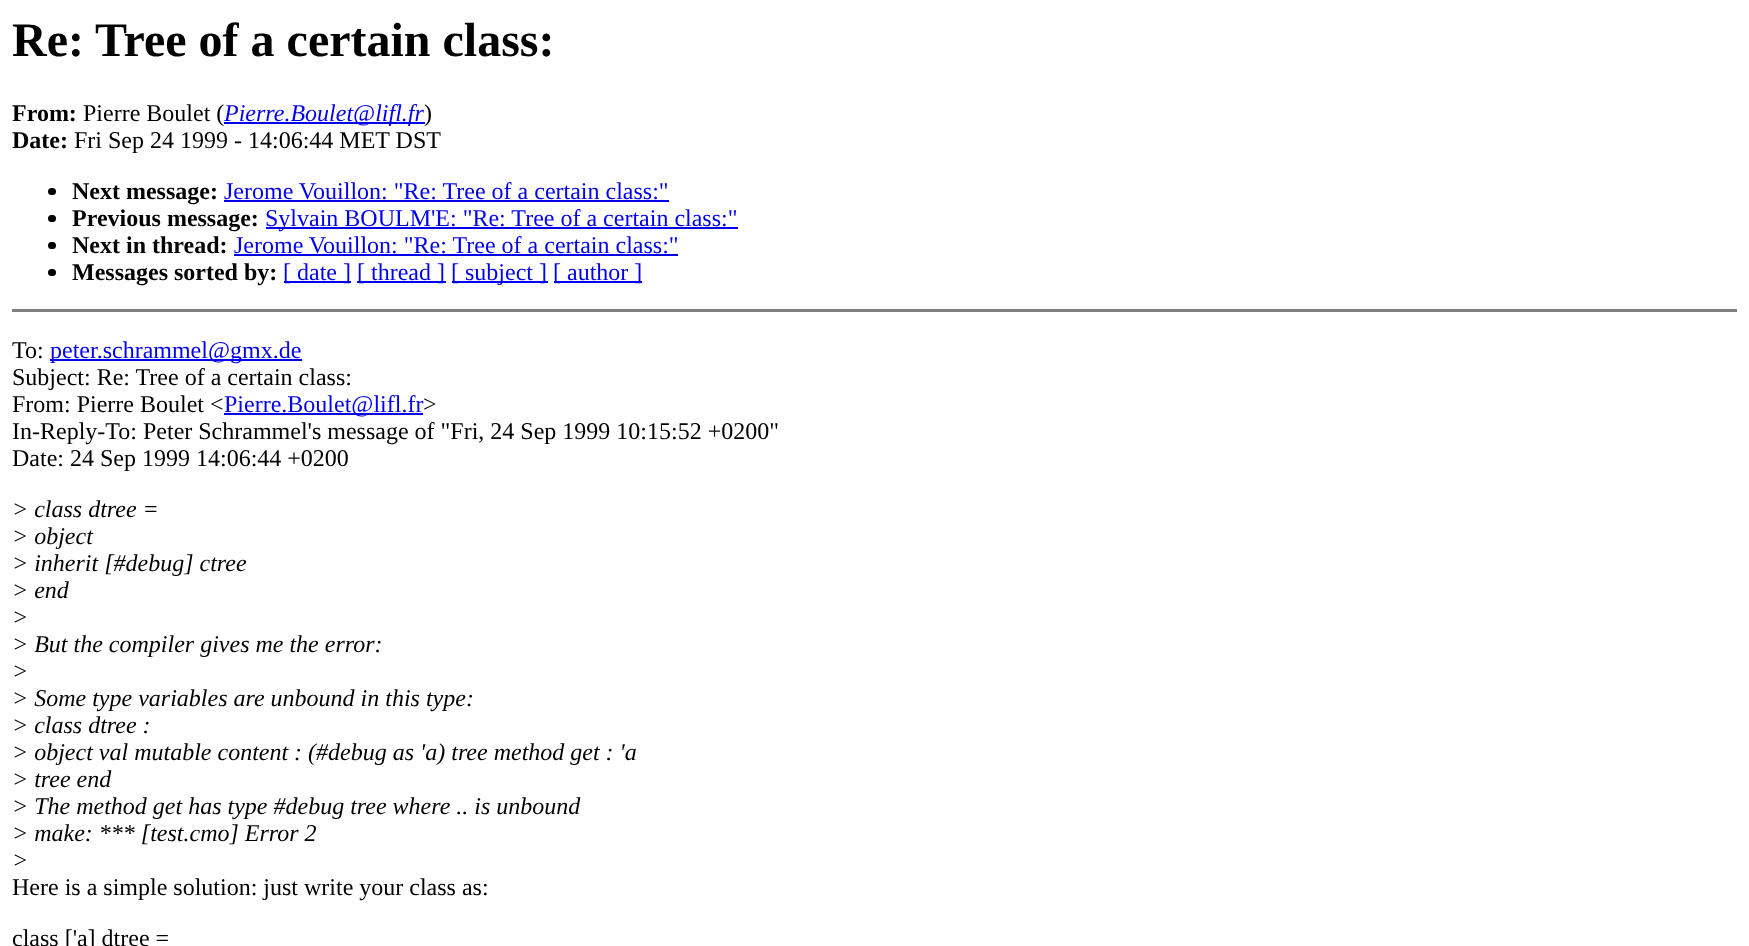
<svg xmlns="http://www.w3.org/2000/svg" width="1749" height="946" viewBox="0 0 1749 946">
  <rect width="100%" height="100%" fill="#ffffff"/>
  <text x="12" y="56" font-family="Liberation Serif" font-size="48" font-weight="bold" fill="#000000">Re: Tree of a certain class:</text>
  <text x="12" y="121" font-family="Liberation Serif" font-size="24" font-weight="bold" fill="#000000">From:</text>
  <text x="83" y="121" font-family="Liberation Serif" font-size="24" fill="#000000">Pierre Boulet (</text>
  <rect x="224" y="122" width="201" height="2" fill="#0000ee"/>
  <text x="224" y="121" font-family="Liberation Serif" font-size="24" font-style="italic" fill="#0000ee">Pierre.Boulet@lifl.fr</text>
  <text x="424" y="121" font-family="Liberation Serif" font-size="24" fill="#000000">)</text>
  <text x="12" y="148" font-family="Liberation Serif" font-size="24" font-weight="bold" fill="#000000">Date:</text>
  <text x="74" y="148" font-family="Liberation Serif" font-size="24" fill="#000000">Fri Sep 24 1999 - 14:06:44 MET DST</text>
  <rect x="48" y="188" width="8" height="7" rx="3.5" fill="#000000"/>
  <text x="72" y="199" font-family="Liberation Serif" font-size="24" font-weight="bold" fill="#000000">Next message:</text>
  <text x="224" y="199" font-family="Liberation Serif" font-size="24" fill="#0000ee">Jerome Vouillon: "Re: Tree of a certain class:"</text>
  <rect x="224" y="200" width="445" height="2" fill="#0000ee"/>
  <rect x="48" y="215" width="8" height="7" rx="3.5" fill="#000000"/>
  <text x="72" y="226" font-family="Liberation Serif" font-size="24" font-weight="bold" fill="#000000">Previous message:</text>
  <rect x="266" y="227" width="472" height="2" fill="#0000ee"/>
  <text x="265" y="226" font-family="Liberation Serif" font-size="24" fill="#0000ee">Sylvain BOULM'E: "Re: Tree of a certain class:"</text>
  <rect x="48" y="242" width="8" height="7" rx="3.5" fill="#000000"/>
  <text x="72" y="253" font-family="Liberation Serif" font-size="24" font-weight="bold" fill="#000000">Next in thread:</text>
  <text x="234" y="253" font-family="Liberation Serif" font-size="24" fill="#0000ee">Jerome Vouillon: "Re: Tree of a certain class:"</text>
  <rect x="234" y="254" width="444" height="2" fill="#0000ee"/>
  <rect x="48" y="269" width="8" height="7" rx="3.5" fill="#000000"/>
  <text x="72" y="280" font-family="Liberation Serif" font-size="24" font-weight="bold" fill="#000000">Messages sorted by:</text>
  <rect x="284" y="281" width="67" height="2" fill="#0000ee"/>
  <text x="283" y="280" font-family="Liberation Serif" font-size="24" fill="#0000ee">[ date ]</text>
  <rect x="357" y="281" width="89" height="2" fill="#0000ee"/>
  <text x="357" y="280" font-family="Liberation Serif" font-size="24" fill="#0000ee">[ thread ]</text>
  <rect x="452" y="281" width="96" height="2" fill="#0000ee"/>
  <text x="451" y="280" font-family="Liberation Serif" font-size="24" fill="#0000ee">[ subject ]</text>
  <rect x="554" y="281" width="88" height="2" fill="#0000ee"/>
  <text x="553" y="280" font-family="Liberation Serif" font-size="24" fill="#0000ee">[ author ]</text>
  <rect x="12" y="309" width="1725" height="3" fill="#808080"/>
  <text x="12" y="358" font-family="Liberation Serif" font-size="24" fill="#000000">To:</text>
  <rect x="50" y="359" width="252" height="2" fill="#0000ee"/>
  <text x="50" y="358" font-family="Liberation Serif" font-size="24" fill="#0000ee">peter.schrammel@gmx.de</text>
  <text x="12" y="385" font-family="Liberation Serif" font-size="24" fill="#000000">Subject: Re: Tree of a certain class:</text>
  <text x="12" y="412" font-family="Liberation Serif" font-size="24" fill="#000000">From: Pierre Boulet &lt;</text>
  <rect x="224" y="413" width="199" height="2" fill="#0000ee"/>
  <text x="224" y="412" font-family="Liberation Serif" font-size="24" fill="#0000ee">Pierre.Boulet@lifl.fr</text>
  <text x="423" y="412" font-family="Liberation Serif" font-size="24" fill="#000000">&gt;</text>
  <text x="12" y="439" font-family="Liberation Serif" font-size="24" fill="#000000">In-Reply-To: Peter Schrammel's message of "Fri, 24 Sep 1999 10:15:52 +0200"</text>
  <text x="12" y="466" font-family="Liberation Serif" font-size="24" fill="#000000">Date: 24 Sep 1999 14:06:44 +0200</text>
  <text x="12" y="517" font-family="Liberation Serif" font-size="24" font-style="italic" fill="#000000">&gt; class dtree =</text>
  <text x="12" y="544" font-family="Liberation Serif" font-size="24" font-style="italic" fill="#000000">&gt; object</text>
  <text x="12" y="571" font-family="Liberation Serif" font-size="24" font-style="italic" fill="#000000">&gt; inherit [#debug] ctree</text>
  <text x="12" y="598" font-family="Liberation Serif" font-size="24" font-style="italic" fill="#000000">&gt; end</text>
  <text x="12" y="625" font-family="Liberation Serif" font-size="24" font-style="italic" fill="#000000">&gt;</text>
  <text x="12" y="652" font-family="Liberation Serif" font-size="24" font-style="italic" fill="#000000">&gt; But the compiler gives me the error:</text>
  <text x="12" y="679" font-family="Liberation Serif" font-size="24" font-style="italic" fill="#000000">&gt;</text>
  <text x="12" y="706" font-family="Liberation Serif" font-size="24" font-style="italic" fill="#000000">&gt; Some type variables are unbound in this type:</text>
  <text x="12" y="733" font-family="Liberation Serif" font-size="24" font-style="italic" fill="#000000">&gt; class dtree :</text>
  <text x="12" y="760" font-family="Liberation Serif" font-size="24" font-style="italic" fill="#000000">&gt; object val mutable content : (#debug as 'a) tree method get : 'a</text>
  <text x="12" y="787" font-family="Liberation Serif" font-size="24" font-style="italic" fill="#000000">&gt; tree end</text>
  <text x="12" y="814" font-family="Liberation Serif" font-size="24" font-style="italic" fill="#000000">&gt; The method get has type #debug tree where .. is unbound</text>
  <text x="12" y="841" font-family="Liberation Serif" font-size="24" font-style="italic" fill="#000000">&gt; make: *** [test.cmo] Error 2</text>
  <text x="12" y="868" font-family="Liberation Serif" font-size="24" font-style="italic" fill="#000000">&gt;</text>
  <text x="12" y="895" font-family="Liberation Serif" font-size="24" fill="#000000">Here is a simple solution: just write your class as:</text>
  <text x="12" y="946" font-family="Liberation Serif" font-size="24" fill="#000000">class ['a] dtree =</text>
</svg>
